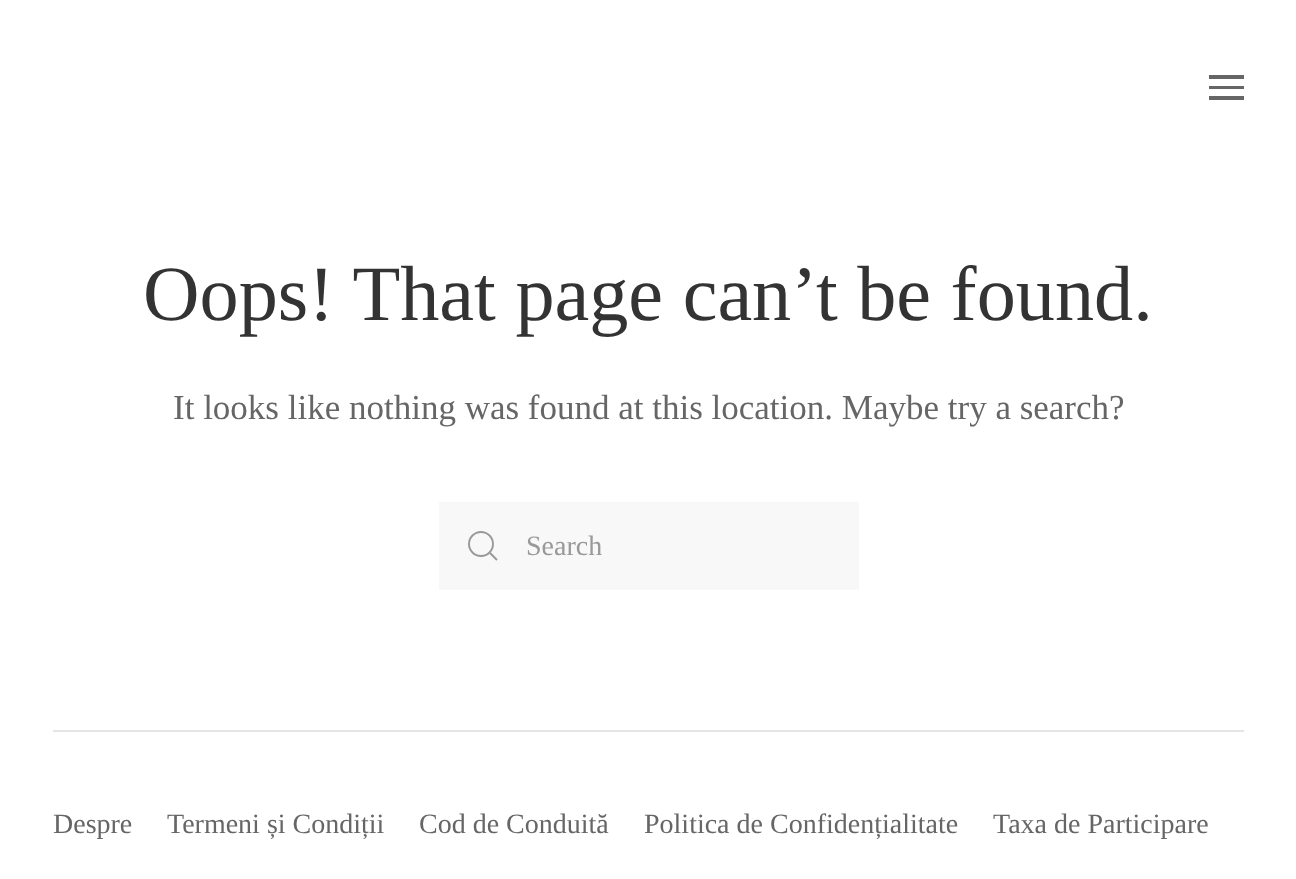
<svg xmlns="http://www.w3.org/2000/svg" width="1296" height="879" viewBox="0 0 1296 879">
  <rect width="100%" height="100%" fill="#ffffff"/>
  <rect x="1209" y="75" width="35" height="4" fill="#666666"/>
  <rect x="1209" y="86" width="35" height="3" fill="#666666"/>
  <rect x="1209" y="96" width="35" height="4" fill="#666666"/>
  <text x="143" y="320" font-family="Liberation Serif" font-size="78.25" fill="#333333">Oops! That page can’t be found.</text>
  <text x="173" y="419" font-family="Liberation Serif" font-size="35" fill="#666666">It looks like nothing was found at this location. Maybe try a search?</text>
  <rect x="439" y="502" width="420" height="88" fill="#f8f8f8"/>
  <circle cx="481" cy="544" r="12" fill="none" stroke="#999999" stroke-width="1.9"/>
  <path d="M490 553L497 560Z" fill="none" stroke="#999999" stroke-width="1.9"/>
  <text x="526" y="555" font-family="Liberation Serif" font-size="28" fill="#999999">Search</text>
  <rect x="53" y="730" width="1191" height="2" fill="#e5e5e5"/>
  <text x="53" y="833" font-family="Liberation Serif" font-size="28" fill="#666666">Despre</text>
  <text x="167" y="833" font-family="Liberation Serif" font-size="28" fill="#666666">Termeni și Condiții</text>
  <text x="419" y="833" font-family="Liberation Serif" font-size="28" fill="#666666">Cod de Conduită</text>
  <text x="644" y="833" font-family="Liberation Serif" font-size="28" fill="#666666">Politica de Confidențialitate</text>
  <text x="993" y="833" font-family="Liberation Serif" font-size="28" fill="#666666">Taxa de Participare</text>
</svg>
